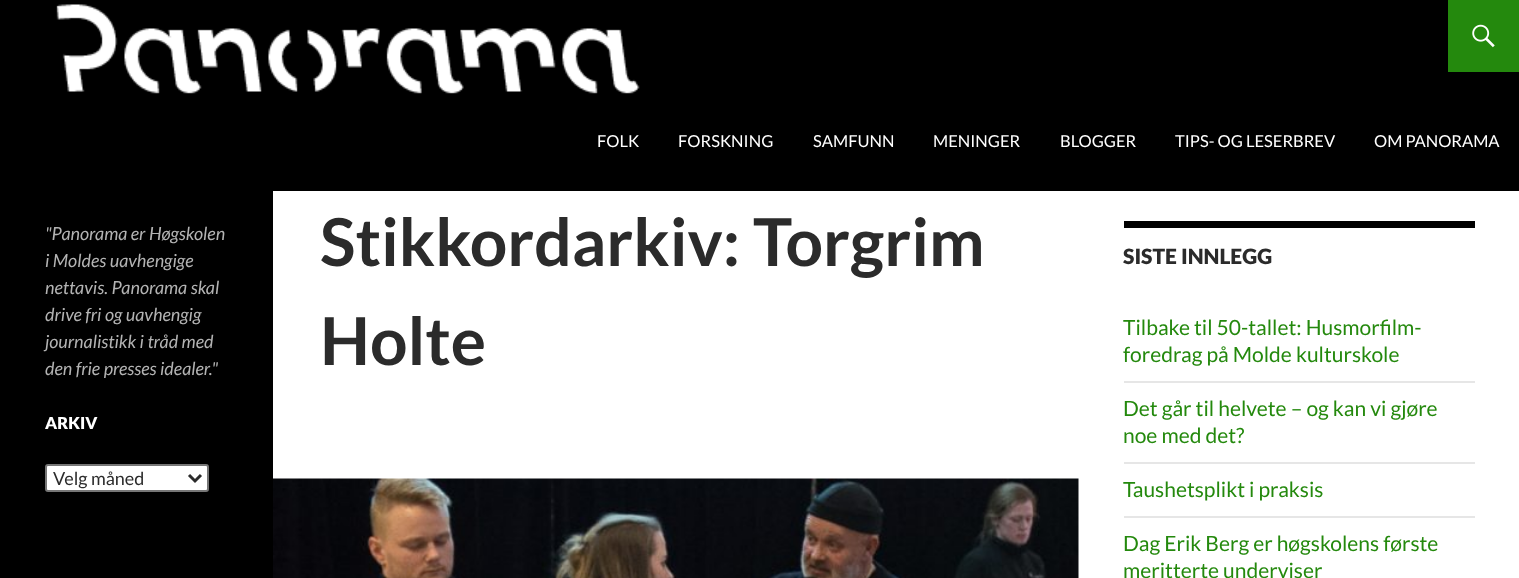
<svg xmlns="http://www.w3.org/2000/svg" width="1519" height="578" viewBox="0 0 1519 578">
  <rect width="100%" height="100%" fill="#ffffff"/>
  <rect x="0" y="0" width="1519" height="191" fill="#000000"/>
  <image x="56" y="4" width="584" height="90" href="img1.png"/>
  <rect x="1448" y="0" width="71" height="72" fill="#24890d"/>
  <image x="1472" y="24" width="23" height="24" href="img2.png"/>
  <text x="597" y="147" font-family="Lato" font-size="16.5" fill="#ffffff">FOLK</text>
  <text x="678" y="147" font-family="Lato" font-size="16.5" fill="#ffffff">FORSKNING</text>
  <text x="813" y="147" font-family="Lato" font-size="16.5" fill="#ffffff">SAMFUNN</text>
  <text x="933" y="147" font-family="Lato" font-size="16.5" fill="#ffffff">MENINGER</text>
  <text x="1060" y="147" font-family="Lato" font-size="16.5" fill="#ffffff">BLOGGER</text>
  <text x="1175" y="147" font-family="Lato" font-size="16.5" fill="#ffffff">TIPS- OG LESERBREV</text>
  <text x="1374" y="147" font-family="Lato" font-size="16.5" fill="#ffffff">OM PANORAMA</text>
  <rect x="0" y="191" width="273" height="387" fill="#000000"/>
  <text x="45" y="240" font-family="Lato" font-size="18" font-style="italic" fill="#b3b3b3">"Panorama er Høgskolen</text>
  <text x="45" y="267" font-family="Lato" font-size="18" font-style="italic" fill="#b3b3b3">i Moldes uavhengige</text>
  <text x="45" y="294" font-family="Lato" font-size="18" font-style="italic" fill="#b3b3b3">nettavis. Panorama skal</text>
  <text x="45" y="321" font-family="Lato" font-size="18" font-style="italic" fill="#b3b3b3">drive fri og uavhengig</text>
  <text x="45" y="348" font-family="Lato" font-size="18" font-style="italic" fill="#b3b3b3">journalistikk i tråd med</text>
  <text x="45" y="375" font-family="Lato" font-size="18" font-style="italic" fill="#b3b3b3">den frie presses idealer."</text>
  <text x="45" y="429" font-family="Lato" font-size="16.5" font-weight="900" fill="#ffffff">ARKIV</text>
  <rect x="46" y="465" width="162" height="26" rx="2" fill="#ffffff" stroke="#767676" stroke-width="2"/>
  <path d="M189 475L195 481L201 475" fill="none" stroke="#2b2b2b" stroke-width="3"/>
  <text x="53" y="485" font-family="Lato" font-size="18" fill="#2b2b2b">Velg måned</text>
  <text x="320" y="266" font-family="Lato" font-size="66" font-weight="bold" fill="#2b2b2b">Stikkordarkiv: Torgrim</text>
  <text x="320" y="365" font-family="Lato" font-size="66" font-weight="bold" fill="#2b2b2b">Holte</text>
  <image x="273" y="478" width="806" height="100" href="img3.png"/>
  <rect x="1124" y="221" width="351" height="7" fill="#000000"/>
  <text x="1123" y="264" font-family="Lato" font-size="21" font-weight="900" fill="#2b2b2b">SISTE INNLEGG</text>
  <text x="1123" y="335" font-family="Lato" font-size="21" fill="#24890d">Tilbake til 50-tallet: Husmorfilm-</text>
  <text x="1123" y="362" font-family="Lato" font-size="21" fill="#24890d">foredrag på Molde kulturskole</text>
  <rect x="1124" y="381" width="351" height="2" fill="#e6e6e6"/>
  <text x="1123" y="416" font-family="Lato" font-size="21" fill="#24890d">Det går til helvete – og kan vi gjøre</text>
  <text x="1123" y="443" font-family="Lato" font-size="21" fill="#24890d">noe med det?</text>
  <rect x="1124" y="462" width="351" height="2" fill="#e6e6e6"/>
  <text x="1123" y="497" font-family="Lato" font-size="21" fill="#24890d">Taushetsplikt i praksis</text>
  <rect x="1124" y="516" width="351" height="2" fill="#e6e6e6"/>
  <text x="1123" y="551" font-family="Lato" font-size="21" fill="#24890d">Dag Erik Berg er høgskolens første</text>
  <text x="1123" y="578" font-family="Lato" font-size="21" fill="#24890d">meritterte underviser</text>
</svg>
